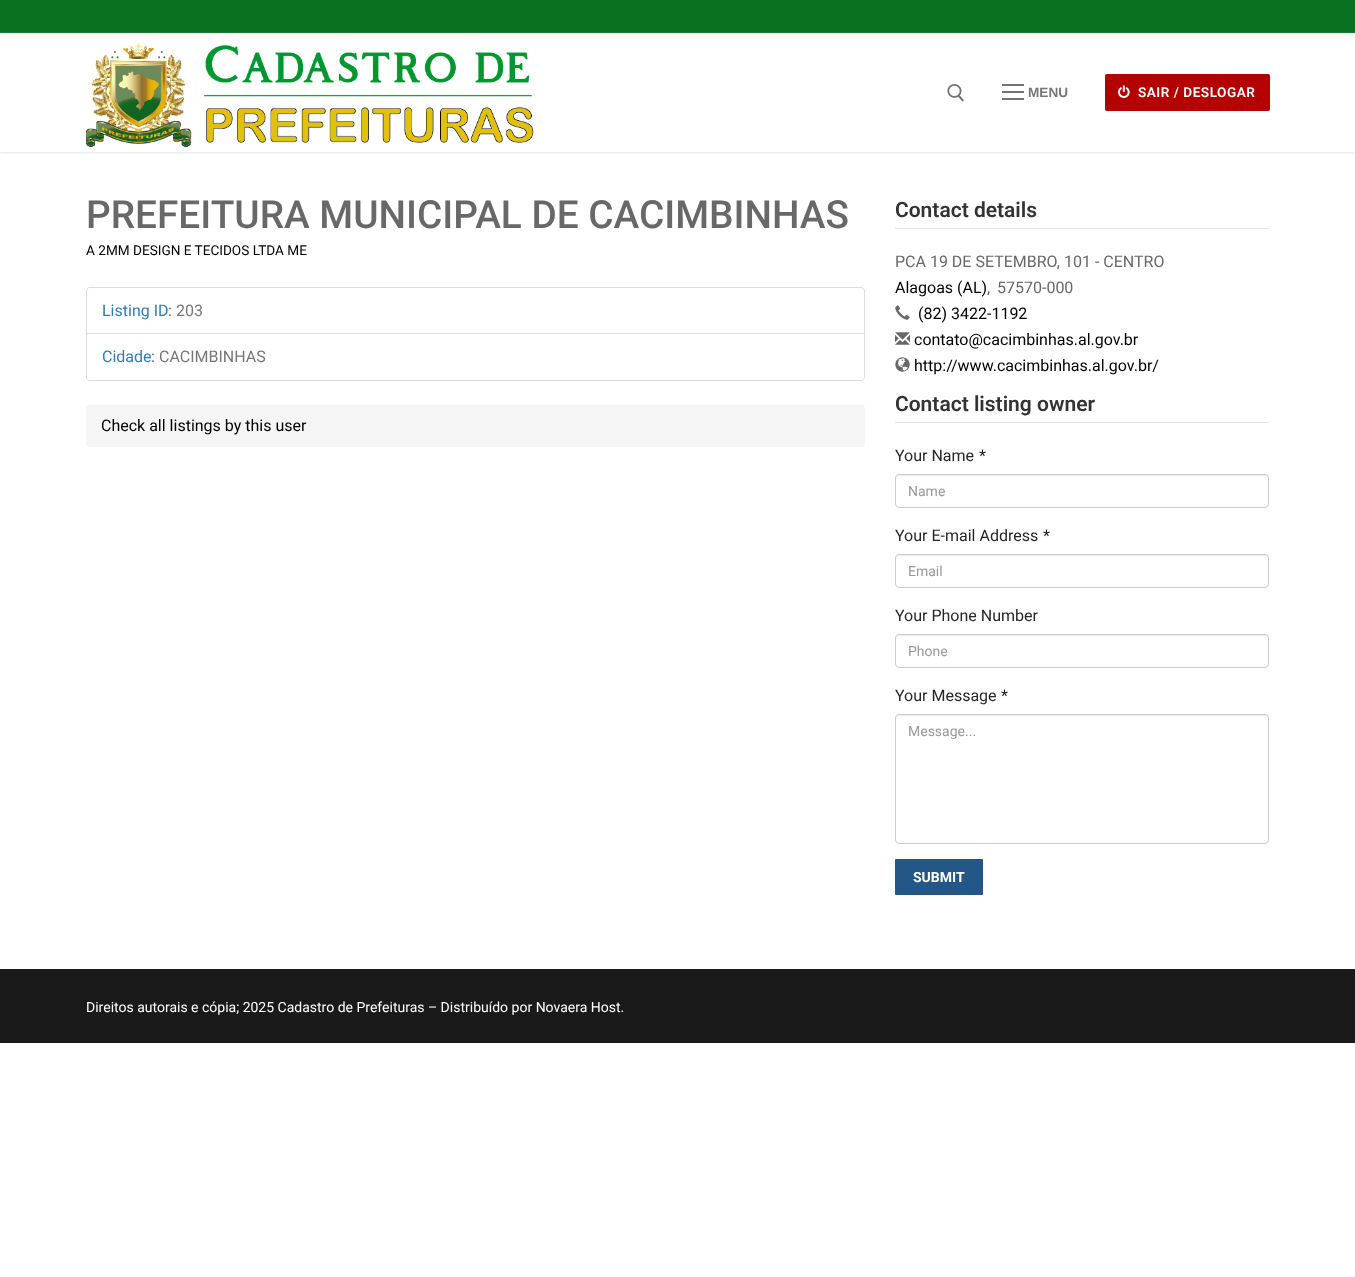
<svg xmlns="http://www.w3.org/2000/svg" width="1355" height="1277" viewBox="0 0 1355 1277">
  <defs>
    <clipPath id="clip1"><path d="M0 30H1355V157H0ZM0 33H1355V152H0Z" clip-rule="evenodd"/></clipPath>
    <filter id="blur1" x="-50%" y="-200%" width="200%" height="500%"><feGaussianBlur stdDeviation="1"/></filter>
  </defs>
  <rect width="100%" height="100%" fill="#ffffff"/>
  <rect x="0" y="0" width="1355" height="33" fill="#097220"/>
  <g clip-path="url(#clip1)">
    <rect x="0" y="34" width="1355" height="119" fill="#e1e5ea" filter="url(#blur1)"/>
  </g>
  <image x="86" y="42" width="448" height="105" href="img1.png"/>
  <image x="947" y="84" width="17" height="18" href="img2.png"/>
  <rect x="1002" y="91" width="22" height="2" fill="#737373"/>
  <rect x="1002" y="84" width="22" height="2" fill="#737373"/>
  <rect x="1002" y="98" width="22" height="2" fill="#737373"/>
  <text x="1028" y="97" font-family="Liberation Sans" font-size="13.6" font-weight="bold" fill="#777777">MENU</text>
  <rect x="1105" y="74" width="165" height="37" rx="2" fill="#b50000"/>
  <image x="1118" y="85" width="12" height="13" href="img3.png"/>
  <text x="1138" y="97" font-family="Roboto" font-size="13.6" font-weight="600" letter-spacing="0.5" fill="#ffffff">SAIR / DESLOGAR</text>
  <text x="86" y="228" font-family="Roboto" font-size="38.75" font-weight="500" fill="#686868">PREFEITURA MUNICIPAL DE CACIMBINHAS</text>
  <text x="86" y="255" font-family="Roboto" font-size="13.6" fill="#000000">A 2MM DESIGN E TECIDOS LTDA ME</text>
  <path d="M90 287.5H861C863 287.5 864.5 289 864.5 291V333.5H86.5V291C86.5 289 88 287.5 90 287.5Z" fill="none" stroke="#dddddd"/>
  <text x="102" y="316" font-family="Roboto" font-size="16" fill="#337ab7">Listing ID</text>
  <text x="168" y="316" font-family="Roboto" font-size="16" fill="#686868">:</text>
  <text x="176" y="316" font-family="Roboto" font-size="16" fill="#777777">203</text>
  <path d="M86.5 333.5H864.5V377C864.5 379 863 380.5 861 380.5H90C88 380.5 86.5 379 86.5 377Z" fill="none" stroke="#dddddd"/>
  <text x="102" y="362" font-family="Roboto" font-size="16" fill="#337ab7">Cidade</text>
  <text x="151" y="362" font-family="Roboto" font-size="16" fill="#686868">:</text>
  <text x="159" y="362" font-family="Roboto" font-size="16" fill="#777777">CACIMBINHAS</text>
  <rect x="86" y="405" width="779" height="42" rx="4" fill="#f5f5f5"/>
  <text x="101" y="431" font-family="Roboto" font-size="16" fill="#000000">Check all listings by this user</text>
  <rect x="895" y="228" width="374" height="1" fill="#e5e5e5"/>
  <text x="895" y="217" font-family="Roboto" font-size="21" font-weight="600" fill="#333333">Contact details</text>
  <text x="895" y="267" font-family="Roboto" font-size="16" fill="#686868">PCA 19 DE SETEMBRO, 101 - CENTRO</text>
  <text x="895" y="293" font-family="Roboto" font-size="16" fill="#000000">Alagoas (AL)</text>
  <text x="987" y="293" font-family="Roboto" font-size="16" fill="#686868">,</text>
  <text x="997" y="293" font-family="Roboto" font-size="16" fill="#686868">57570-000</text>
  <image x="895" y="305" width="15" height="15" href="img4.png"/>
  <text x="918" y="319" font-family="Roboto" font-size="16" fill="#000000">(82) 3422-1192</text>
  <image x="895" y="332" width="15" height="13" href="img5.png"/>
  <text x="914" y="345" font-family="Roboto" font-size="16" fill="#000000">contato@cacimbinhas.al.gov.br</text>
  <image x="895" y="357" width="15" height="15" href="img6.png"/>
  <text x="914" y="371" font-family="Roboto" font-size="16" fill="#000000">http://www.cacimbinhas.al.gov.br/</text>
  <rect x="895" y="422" width="374" height="1" fill="#e5e5e5"/>
  <text x="895" y="411" font-family="Roboto" font-size="21" font-weight="600" fill="#333333">Contact listing owner</text>
  <text x="895" y="461" font-family="Roboto" font-size="16" fill="#252525">Your Name</text>
  <text x="979" y="461" font-family="Roboto" font-size="16" fill="#252525">*</text>
  <path d="M899 476H1265C1267 476 1268 477 1268 479C1268 477 1267 475 1265 475H899L897 476L896 479C896 477 897 476 899 476Z" fill="#ececec"/>
  <rect x="895.5" y="474.5" width="373" height="33" rx="3.5" fill="none" stroke="#cccccc"/>
  <text x="908" y="496" font-family="Roboto" font-size="14" fill="#999999">Name</text>
  <text x="895" y="541" font-family="Roboto" font-size="16" fill="#252525">Your E-mail Address</text>
  <text x="1043" y="541" font-family="Roboto" font-size="16" fill="#252525">*</text>
  <path d="M899 556H1265C1267 556 1268 557 1268 559C1268 557 1267 555 1265 555H899L897 556L896 559C896 557 897 556 899 556Z" fill="#ececec"/>
  <rect x="895.5" y="554.5" width="373" height="33" rx="3.5" fill="none" stroke="#cccccc"/>
  <text x="908" y="576" font-family="Roboto" font-size="14" fill="#999999">Email</text>
  <text x="895" y="621" font-family="Roboto" font-size="16" fill="#252525">Your Phone Number</text>
  <path d="M899 636H1265C1267 636 1268 637 1268 639C1268 637 1267 635 1265 635H899L897 636L896 639C896 637 897 636 899 636Z" fill="#ececec"/>
  <rect x="895.5" y="634.5" width="373" height="33" rx="3.5" fill="none" stroke="#cccccc"/>
  <text x="908" y="656" font-family="Roboto" font-size="14" fill="#999999">Phone</text>
  <text x="895" y="701" font-family="Roboto" font-size="16" fill="#252525">Your Message</text>
  <text x="1001" y="701" font-family="Roboto" font-size="16" fill="#252525">*</text>
  <path d="M899 716H1265C1267 716 1268 717 1268 719C1268 717 1267 715 1265 715H899L897 716L896 719C896 717 897 716 899 716Z" fill="#ececec"/>
  <rect x="895.5" y="714.5" width="373" height="129" rx="3.5" fill="none" stroke="#cccccc"/>
  <text x="908" y="736" font-family="Roboto" font-size="14" fill="#999999">Message...</text>
  <rect x="895" y="859" width="88" height="36" rx="1" fill="#235787"/>
  <text x="913" y="882" font-family="Roboto" font-size="14" font-weight="bold" fill="#ffffff">SUBMIT</text>
  <rect x="0" y="969" width="1355" height="74" fill="#1a1a1a"/>
  <text x="86" y="1012" font-family="Roboto" font-size="14" fill="#ffffff">Direitos autorais e cópia; 2025 Cadastro de Prefeituras – Distribuído por Novaera Host.</text>
</svg>
